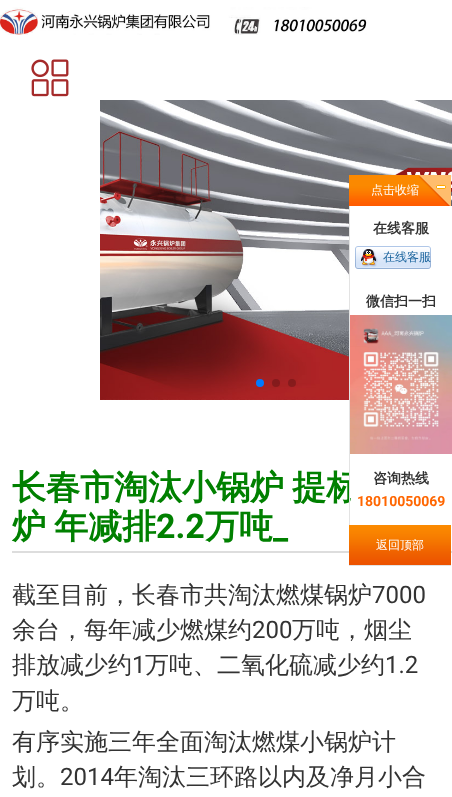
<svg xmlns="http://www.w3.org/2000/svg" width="452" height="797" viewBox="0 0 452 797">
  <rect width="100%" height="100%" fill="#ffffff"/>
  <image x="0" y="7" width="367" height="28" href="img1.png"/>
  <image x="31" y="59" width="38" height="38" href="img2.png"/>
  <image x="100" y="100" width="352" height="300" href="img3.png"/>
  <circle cx="260" cy="383" r="4" fill="#007aff"/>
  <circle cx="276" cy="383" r="4" fill="#000000" fill-opacity="0.2"/>
  <circle cx="292" cy="383" r="4" fill="#000000" fill-opacity="0.2"/>
  <image x="349" y="175" width="102" height="31" href="img4.png"/>
  <text x="371" y="194" font-family="WenQuanYi Zen Hei" font-size="12" font-weight="500" fill="#ffffff">点击收缩</text>
  <text x="12" y="499" word-spacing="-2" font-family="WenQuanYi Zen Hei" font-size="34" font-weight="bold" fill="#008000">长春市淘汰小锅炉 提标</text>
  <rect x="350" y="206" width="102" height="292" fill="#ffffff"/>
  <rect x="349" y="206" width="1" height="319" fill="#e3e3e3"/>
  <text x="373" y="233" font-family="WenQuanYi Zen Hei" font-size="14" font-weight="bold" fill="#333333">在线客服</text>
  <image x="355" y="246" width="76" height="23" href="img5.png"/>
  <text x="383" y="261" font-family="WenQuanYi Zen Hei" font-size="12" font-weight="500" fill="#1a649d">在线客服</text>
  <text x="366" y="306" font-family="WenQuanYi Zen Hei" font-size="14" font-weight="bold" fill="#333333">微信扫一扫</text>
  <image x="350" y="315" width="102" height="139" href="img6.png"/>
  <text x="373" y="483" font-family="WenQuanYi Zen Hei" font-size="14" font-weight="bold" fill="#333333">咨询热线</text>
  <text x="357" y="506" font-family="Roboto" font-size="14" font-weight="bold" fill="#ff6600">18010050069</text>
  <rect x="12" y="551" width="440" height="2" fill="#dddddd"/>
  <image x="349" y="525" width="102" height="40" href="img7.png"/>
  <rect x="349" y="565" width="102" height="1" fill="#e3e3e3"/>
  <text x="376" y="549" font-family="WenQuanYi Zen Hei" font-size="12" font-weight="500" fill="#ffffff">返回顶部</text>
  <text x="12" y="538" word-spacing="-2" font-family="WenQuanYi Zen Hei" font-size="34" font-weight="bold" fill="#008000">炉 年减排</text>
  <text x="156" y="538" font-family="Roboto" font-size="34" font-weight="bold" fill="#008000">2.2</text>
  <text x="205" y="538" font-family="WenQuanYi Zen Hei" font-size="34" font-weight="bold" fill="#008000">万吨</text>
  <text x="273" y="538" font-family="Roboto" font-size="34" font-weight="bold" fill="#008000">_</text>
  <text x="12" y="603" font-family="WenQuanYi Zen Hei" font-size="24" font-weight="500" fill="#333333">截至目前，长春市共淘汰燃煤锅炉</text>
  <text x="372" y="603" font-family="Roboto" font-size="24" fill="#333333">7000</text>
  <text x="12" y="638" font-family="WenQuanYi Zen Hei" font-size="24" font-weight="500" fill="#333333">余台，每年减少燃煤约</text>
  <text x="252" y="638" font-family="Roboto" font-size="24" fill="#333333">200</text>
  <text x="292" y="638" font-family="WenQuanYi Zen Hei" font-size="24" font-weight="500" fill="#333333">万吨，烟尘</text>
  <text x="12" y="673" font-family="WenQuanYi Zen Hei" font-size="24" font-weight="500" fill="#333333">排放减少约</text>
  <text x="132" y="673" font-family="Roboto" font-size="24" fill="#333333">1</text>
  <text x="145" y="673" font-family="WenQuanYi Zen Hei" font-size="24" font-weight="500" fill="#333333">万吨、二氧化硫减少约</text>
  <text x="385" y="673" font-family="Roboto" font-size="24" fill="#333333">1.2</text>
  <text x="12" y="709" font-family="WenQuanYi Zen Hei" font-size="24" font-weight="500" fill="#333333">万吨。</text>
  <text x="12" y="750" font-family="WenQuanYi Zen Hei" font-size="24" font-weight="500" fill="#333333">有序实施三年全面淘汰燃煤小锅炉计</text>
  <text x="12" y="785" font-family="WenQuanYi Zen Hei" font-size="24" font-weight="500" fill="#333333">划。</text>
  <text x="60" y="785" font-family="Roboto" font-size="24" fill="#333333">2014</text>
  <text x="114" y="785" font-family="WenQuanYi Zen Hei" font-size="24" font-weight="500" fill="#333333">年淘汰三环路以内及净月小合</text>
</svg>
